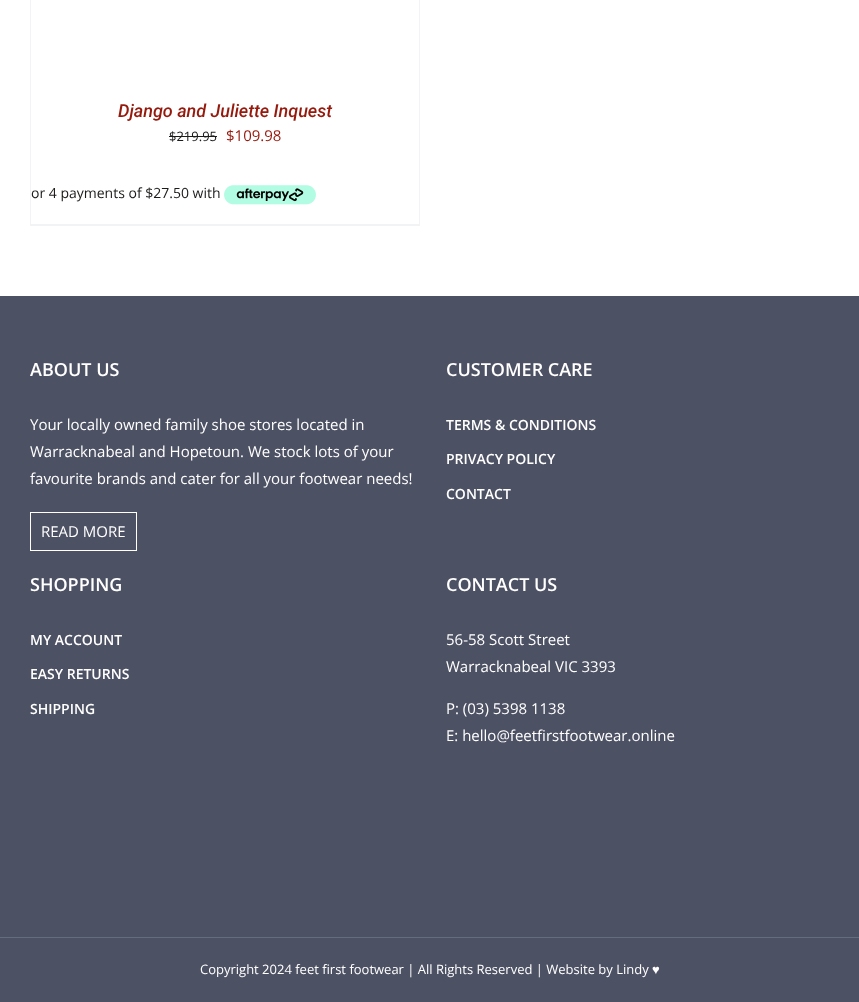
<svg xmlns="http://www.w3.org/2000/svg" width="859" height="1002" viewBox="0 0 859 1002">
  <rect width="100%" height="100%" fill="#ffffff"/>
  <rect x="419" y="0" width="1" height="226" fill="#f2f3f5"/>
  <rect x="30" y="224" width="390" height="2" fill="#f2f3f5"/>
  <rect x="30" y="0" width="1" height="226" fill="#f2f3f5"/>
  <text x="118" y="117" font-family="Roboto" font-size="18" font-weight="500" font-style="italic" fill="#95190c">Django and Juliette Inquest</text>
  <text x="169" y="141" font-family="Open Sans" font-size="13" fill="#1c1b1a">$219.95</text>
  <rect x="169" y="136" width="48" height="1" fill="#1c1b1a"/>
  <text x="226" y="141" font-family="Open Sans" font-size="15" fill="#95190c">$109.98</text>
  <text x="31" y="198" font-family="Open Sans" font-size="14" fill="#1c1b1a">or 4 payments of $27.50 with</text>
  <image x="224" y="185" width="92" height="20" href="img1.png"/>
  <rect x="0" y="296" width="859" height="641" fill="#4d5164"/>
  <text x="30" y="376" font-family="Open Sans" font-size="18" font-weight="600" fill="#ffffff">ABOUT US</text>
  <text x="30" y="430" font-family="Open Sans" font-size="15" fill="#ffffff">Your locally owned family shoe stores located in</text>
  <text x="30" y="457" font-family="Open Sans" font-size="15" fill="#ffffff">Warracknabeal and Hopetoun. We stock lots of your</text>
  <text x="30" y="484" font-family="Open Sans" font-size="15" fill="#ffffff">favourite brands and cater for all your footwear needs!</text>
  <rect x="30.5" y="512.5" width="106" height="38" fill="none" stroke="#ffffff"/>
  <text x="41" y="537" font-family="Open Sans" font-size="15" fill="#ffffff">READ MORE</text>
  <text x="446" y="376" font-family="Open Sans" font-size="18" font-weight="600" fill="#ffffff">CUSTOMER CARE</text>
  <text x="446" y="430" font-family="Open Sans" font-size="14" font-weight="600" fill="#ffffff">TERMS &amp; CONDITIONS</text>
  <text x="446" y="464" font-family="Open Sans" font-size="14" font-weight="600" fill="#ffffff">PRIVACY POLICY</text>
  <text x="446" y="499" font-family="Open Sans" font-size="14" font-weight="600" fill="#ffffff">CONTACT</text>
  <text x="30" y="591" font-family="Open Sans" font-size="18" font-weight="600" fill="#ffffff">SHOPPING</text>
  <text x="30" y="645" font-family="Open Sans" font-size="14" font-weight="600" fill="#ffffff">MY ACCOUNT</text>
  <text x="30" y="679" font-family="Open Sans" font-size="14" font-weight="600" fill="#ffffff">EASY RETURNS</text>
  <text x="30" y="714" font-family="Open Sans" font-size="14" font-weight="600" fill="#ffffff">SHIPPING</text>
  <text x="446" y="591" font-family="Open Sans" font-size="18" font-weight="600" fill="#ffffff">CONTACT US</text>
  <text x="446" y="645" font-family="Open Sans" font-size="15" fill="#ffffff">56-58 Scott Street</text>
  <text x="446" y="672" font-family="Open Sans" font-size="15" fill="#ffffff">Warracknabeal VIC 3393</text>
  <text x="446" y="714" font-family="Open Sans" font-size="15" fill="#ffffff">P: (03) 5398 1138</text>
  <text x="446" y="741" font-family="Open Sans" font-size="15" fill="#ffffff">E: hello@feetfirstfootwear.online</text>
  <rect x="0" y="938" width="859" height="64" fill="#4d5164"/>
  <rect x="0" y="937" width="859" height="1" fill="#616e7b"/>
  <text x="200" y="974" font-family="Open Sans" font-size="13" fill="#ffffff">Copyright 2024 feet first footwear | All Rights Reserved | Website by Lindy</text>
  <text x="652" y="974" font-family="Liberation Sans" font-size="13" fill="#ffffff">♥</text>
</svg>
